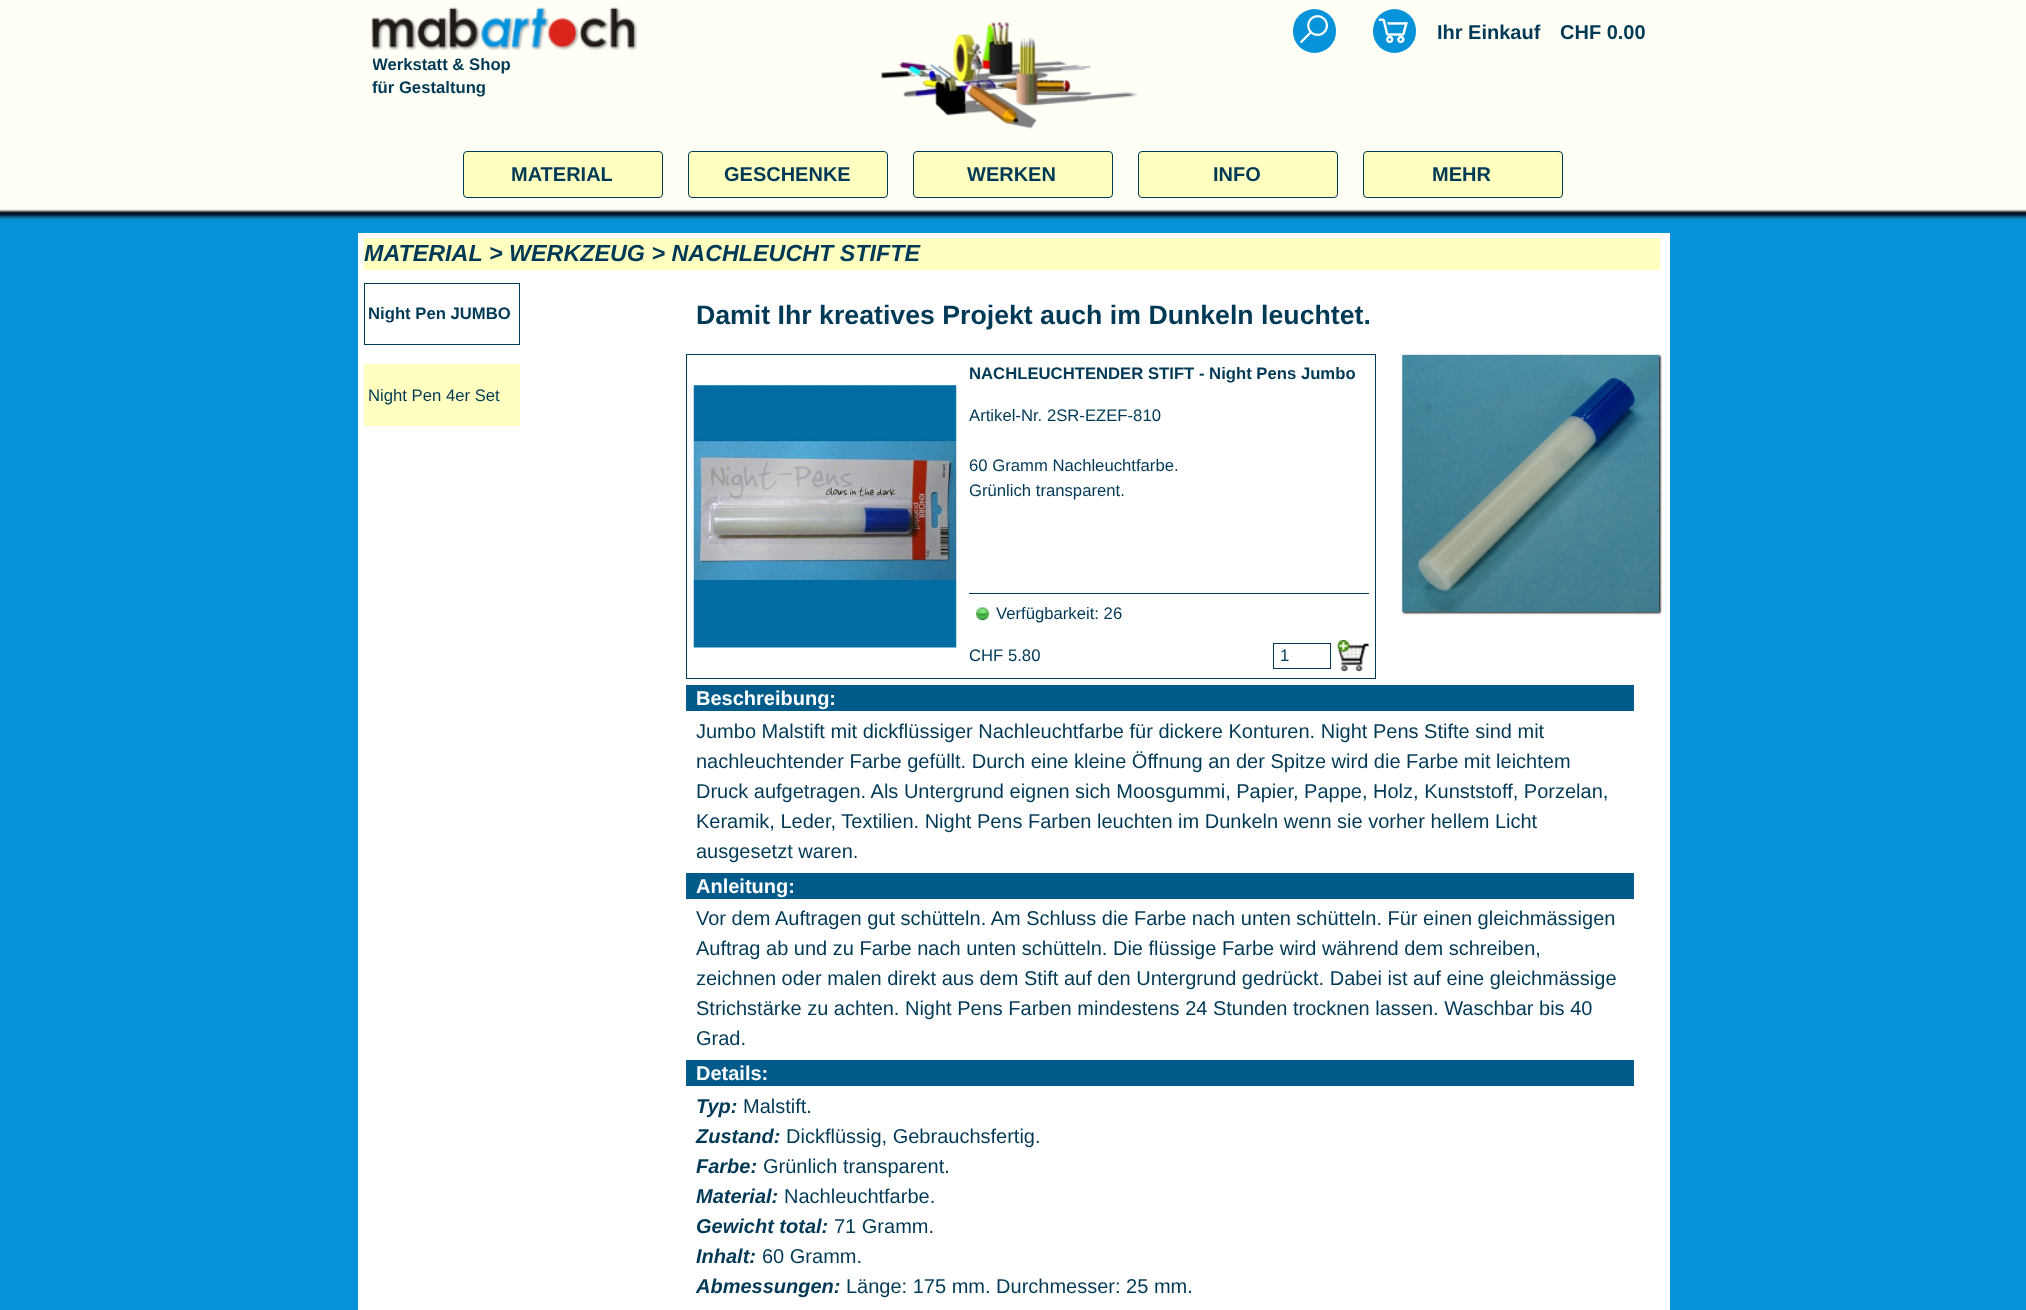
<svg xmlns="http://www.w3.org/2000/svg" width="2026" height="1310" viewBox="0 0 2026 1310">
  <defs>
    <clipPath id="clip1"><rect x="373" y="53" width="208" height="50"/></clipPath>
  </defs>
  <rect width="100%" height="100%" fill="#0693da"/>
  <rect x="0" y="0" width="2026" height="204" fill="#fffff5"/>
  <image x="0" y="204" width="2026" height="16" href="img1.png"/>
  <image x="371" y="7" width="267" height="44" href="img2.png"/>
  <image x="881" y="21" width="257" height="108" href="img3.png"/>
  <rect x="1293" y="9" width="43" height="44" rx="21.5" fill="#0693da"/>
  <image x="1299" y="15" width="29" height="29" href="img4.png"/>
  <rect x="1373" y="9" width="43" height="44" rx="21.5" fill="#0693da"/>
  <image x="1378" y="18" width="30" height="26" href="img5.png"/>
  <text x="1437" y="39" font-family="Liberation Sans" font-size="20" font-weight="bold" fill="#003956">Ihr Einkauf</text>
  <text x="1560" y="39" font-family="Liberation Sans" font-size="20" font-weight="bold" fill="#003956">CHF 0.00</text>
  <g clip-path="url(#clip1)">
    <text x="372" y="70" font-family="Liberation Sans" font-size="16.7" font-weight="bold" fill="#003956">Werkstatt &amp; Shop</text>
  </g>
  <text x="372" y="93" font-family="Liberation Sans" font-size="16.7" font-weight="bold" fill="#003956">für Gestaltung</text>
  <rect x="463.5" y="151.5" width="199" height="46" rx="3.5" fill="#ffffc0" stroke="#003956"/>
  <text x="511" y="181" font-family="Liberation Sans" font-size="20" font-weight="bold" fill="#003956">MATERIAL</text>
  <rect x="688.5" y="151.5" width="199" height="46" rx="3.5" fill="#ffffc0" stroke="#003956"/>
  <text x="724" y="181" font-family="Liberation Sans" font-size="20" font-weight="bold" fill="#003956">GESCHENKE</text>
  <rect x="913.5" y="151.5" width="199" height="46" rx="3.5" fill="#ffffc0" stroke="#003956"/>
  <text x="967" y="181" font-family="Liberation Sans" font-size="20" font-weight="bold" fill="#003956">WERKEN</text>
  <rect x="1138.5" y="151.5" width="199" height="46" rx="3.5" fill="#ffffc0" stroke="#003956"/>
  <text x="1213" y="181" font-family="Liberation Sans" font-size="20" font-weight="bold" fill="#003956">INFO</text>
  <rect x="1363.5" y="151.5" width="199" height="46" rx="3.5" fill="#ffffc0" stroke="#003956"/>
  <text x="1432" y="181" font-family="Liberation Sans" font-size="20" font-weight="bold" fill="#003956">MEHR</text>
  <rect x="358" y="233" width="1312" height="1077" fill="#ffffff"/>
  <rect x="364" y="238" width="1296" height="32" fill="#ffffc0"/>
  <text x="364" y="261" font-family="Liberation Sans" font-size="23.3" font-weight="bold" font-style="italic" fill="#003956">MATERIAL</text>
  <text x="489" y="261" font-family="Liberation Sans" font-size="23.3" font-weight="bold" font-style="italic" fill="#003956">&gt; WERKZEUG &gt; NACHLEUCHT STIFTE</text>
  <rect x="364.5" y="283.5" width="155" height="61" fill="none" stroke="#003956"/>
  <text x="368" y="319" font-family="Liberation Sans" font-size="16.7" font-weight="bold" fill="#003956">Night Pen JUMBO</text>
  <rect x="364" y="364" width="156" height="62" fill="#ffffc0"/>
  <text x="368" y="401" font-family="Liberation Sans" font-size="16.7" fill="#003956">Night Pen 4er Set</text>
  <text x="696" y="324" font-family="Liberation Sans" font-size="26.7" font-weight="bold" fill="#003956">Damit Ihr kreatives Projekt auch im Dunkeln leuchtet.</text>
  <image x="1401" y="354" width="261" height="261" href="img6.png"/>
  <rect x="686.5" y="354.5" width="689" height="324" fill="none" stroke="#003956"/>
  <text x="969" y="379" font-family="Liberation Sans" font-size="16.7" font-weight="bold" fill="#003956">NACHLEUCHTENDER STIFT - Night Pens Jumbo</text>
  <image x="693" y="385" width="264" height="263" href="img7.png"/>
  <text x="969" y="421" font-family="Liberation Sans" font-size="16.7" fill="#003956">Artikel-Nr. 2SR-EZEF-810</text>
  <text x="969" y="471" font-family="Liberation Sans" font-size="16.7" fill="#003956">60 Gramm Nachleuchtfarbe.</text>
  <text x="969" y="496" font-family="Liberation Sans" font-size="16.7" fill="#003956">Grünlich transparent.</text>
  <rect x="969" y="593" width="400" height="1" fill="#003956"/>
  <image x="976" y="607" width="13" height="14" href="img8.png"/>
  <text x="996" y="619" font-family="Liberation Sans" font-size="16.7" fill="#003956">Verfügbarkeit: 26</text>
  <text x="969" y="661" font-family="Liberation Sans" font-size="16.7" fill="#003956">CHF 5.80</text>
  <rect x="1273.5" y="643.5" width="57" height="25" fill="none" stroke="#003956"/>
  <text x="1280" y="661" font-family="Liberation Sans" font-size="16.7" fill="#003956">1</text>
  <image x="1337" y="640" width="32" height="32" href="img9.png"/>
  <rect x="686" y="685" width="948" height="26" fill="#005b8a"/>
  <text x="696" y="705" font-family="Liberation Sans" font-size="20" font-weight="bold" fill="#ffffff">Beschreibung:</text>
  <text x="696" y="738" font-family="Liberation Sans" font-size="20" fill="#003956">Jumbo Malstift mit dickflüssiger Nachleuchtfarbe für dickere Konturen. Night Pens Stifte sind mit</text>
  <text x="696" y="768" font-family="Liberation Sans" font-size="20" fill="#003956">nachleuchtender Farbe gefüllt. Durch eine kleine Öffnung an der Spitze wird die Farbe mit leichtem</text>
  <text x="696" y="798" font-family="Liberation Sans" font-size="20" fill="#003956">Druck aufgetragen. Als Untergrund eignen sich Moosgummi, Papier, Pappe, Holz, Kunststoff, Porzelan,</text>
  <text x="696" y="828" font-family="Liberation Sans" font-size="20" fill="#003956">Keramik, Leder, Textilien. Night Pens Farben leuchten im Dunkeln wenn sie vorher hellem Licht</text>
  <text x="696" y="858" font-family="Liberation Sans" font-size="20" fill="#003956">ausgesetzt waren.</text>
  <rect x="686" y="873" width="948" height="26" fill="#005b8a"/>
  <text x="696" y="893" font-family="Liberation Sans" font-size="20" font-weight="bold" fill="#ffffff">Anleitung:</text>
  <text x="696" y="925" font-family="Liberation Sans" font-size="20" fill="#003956">Vor dem Auftragen gut schütteln. Am Schluss die Farbe nach unten schütteln. Für einen gleichmässigen</text>
  <text x="696" y="955" font-family="Liberation Sans" font-size="20" fill="#003956">Auftrag ab und zu Farbe nach unten schütteln. Die flüssige Farbe wird während dem schreiben,</text>
  <text x="696" y="985" font-family="Liberation Sans" font-size="20" fill="#003956">zeichnen oder malen direkt aus dem Stift auf den Untergrund gedrückt. Dabei ist auf eine gleichmässige</text>
  <text x="696" y="1015" font-family="Liberation Sans" font-size="20" fill="#003956">Strichstärke zu achten. Night Pens Farben mindestens 24 Stunden trocknen lassen. Waschbar bis 40</text>
  <text x="696" y="1045" font-family="Liberation Sans" font-size="20" fill="#003956">Grad.</text>
  <rect x="686" y="1060" width="948" height="26" fill="#005b8a"/>
  <text x="696" y="1080" font-family="Liberation Sans" font-size="20" font-weight="bold" fill="#ffffff">Details:</text>
  <text x="696" y="1113" font-family="Liberation Sans" font-size="20" font-weight="bold" font-style="italic" fill="#003956">Typ:</text>
  <text x="743" y="1113" font-family="Liberation Sans" font-size="20" fill="#003956">Malstift.</text>
  <text x="696" y="1143" font-family="Liberation Sans" font-size="20" font-weight="bold" font-style="italic" fill="#003956">Zustand:</text>
  <text x="786" y="1143" font-family="Liberation Sans" font-size="20" fill="#003956">Dickflüssig, Gebrauchsfertig.</text>
  <text x="696" y="1173" font-family="Liberation Sans" font-size="20" font-weight="bold" font-style="italic" fill="#003956">Farbe:</text>
  <text x="763" y="1173" font-family="Liberation Sans" font-size="20" fill="#003956">Grünlich transparent.</text>
  <text x="696" y="1203" font-family="Liberation Sans" font-size="20" font-weight="bold" font-style="italic" fill="#003956">Material:</text>
  <text x="784" y="1203" font-family="Liberation Sans" font-size="20" fill="#003956">Nachleuchtfarbe.</text>
  <text x="696" y="1233" font-family="Liberation Sans" font-size="20" font-weight="bold" font-style="italic" fill="#003956">Gewicht total:</text>
  <text x="834" y="1233" font-family="Liberation Sans" font-size="20" fill="#003956">71 Gramm.</text>
  <text x="696" y="1263" font-family="Liberation Sans" font-size="20" font-weight="bold" font-style="italic" fill="#003956">Inhalt:</text>
  <text x="762" y="1263" font-family="Liberation Sans" font-size="20" fill="#003956">60 Gramm.</text>
  <text x="696" y="1293" font-family="Liberation Sans" font-size="20" font-weight="bold" font-style="italic" fill="#003956">Abmessungen:</text>
  <text x="846" y="1293" font-family="Liberation Sans" font-size="20" fill="#003956">Länge: 175 mm. Durchmesser: 25 mm.</text>
</svg>
